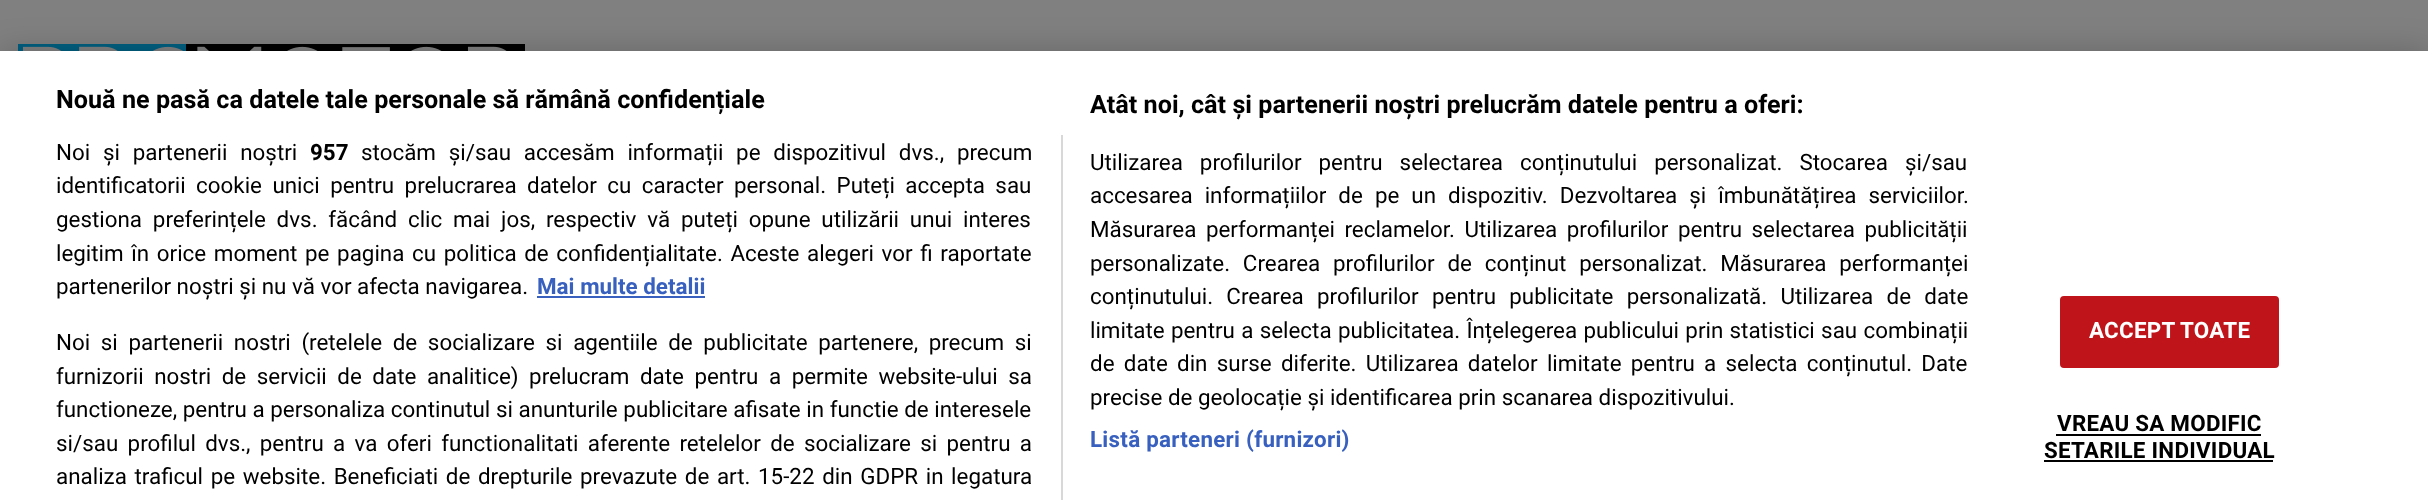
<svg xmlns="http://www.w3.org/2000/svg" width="2428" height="500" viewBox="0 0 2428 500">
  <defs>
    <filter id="blur1" x="-50%" y="-200%" width="200%" height="500%"><feGaussianBlur stdDeviation="16"/></filter>
  </defs>
  <rect width="100%" height="100%" fill="#808080"/>
  <image x="18" y="44" width="507" height="7" href="img1.png"/>
  <rect x="0" y="51" width="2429" height="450" fill="#000000" fill-opacity="0.2" filter="url(#blur1)"/>
  <rect x="0" y="51" width="2428" height="449" fill="#ffffff"/>
  <text x="56" y="108" font-family="Roboto" font-size="25.2" font-weight="bold" fill="#000000">Nouă ne pasă ca datele tale personale să rămână confidențiale</text>
  <text x="1090" y="113" font-family="Roboto" font-size="25.2" font-weight="bold" fill="#000000">Atât noi, cât și partenerii noștri prelucrăm datele pentru a oferi:</text>
  <text x="1090" y="170" word-spacing="11.5" font-family="Roboto" font-size="22.4" fill="#000000">Utilizarea profilurilor pentru selectarea conținutului personalizat. Stocarea și/sau</text>
  <text x="1090" y="203" word-spacing="6.5" font-family="Roboto" font-size="22.4" fill="#000000">accesarea informațiilor de pe un dispozitiv. Dezvoltarea și îmbunătățirea serviciilor.</text>
  <text x="1090" y="237" word-spacing="4" font-family="Roboto" font-size="22.4" fill="#000000">Măsurarea performanței reclamelor. Utilizarea profilurilor pentru selectarea publicității</text>
  <text x="1090" y="271" word-spacing="7.25" font-family="Roboto" font-size="22.4" fill="#000000">personalizate. Crearea profilurilor de conținut personalizat. Măsurarea performanței</text>
  <text x="1090" y="304" word-spacing="7.75" font-family="Roboto" font-size="22.4" fill="#000000">conținutului. Crearea profilurilor pentru publicitate personalizată. Utilizarea de date</text>
  <text x="1090" y="338" word-spacing="0.75" font-family="Roboto" font-size="22.4" fill="#000000">limitate pentru a selecta publicitatea. Înțelegerea publicului prin statistici sau combinații</text>
  <text x="1090" y="371" word-spacing="3.75" font-family="Roboto" font-size="22.4" fill="#000000">de date din surse diferite. Utilizarea datelor limitate pentru a selecta conținutul. Date</text>
  <text x="1090" y="405" font-family="Roboto" font-size="22.4" fill="#000000">precise de geolocație și identificarea prin scanarea dispozitivului.</text>
  <text x="1090" y="447" font-family="Roboto" font-size="22.4" font-weight="bold" letter-spacing="0.25" fill="#3860be">Listă parteneri (furnizori)</text>
  <rect x="1061" y="135" width="2" height="365" fill="#d8d8d8"/>
  <text x="56" y="160" word-spacing="7.25" font-family="Roboto" font-size="22.4" fill="#000000">Noi și partenerii noștri</text>
  <text x="310" y="160" font-family="Roboto" font-size="22.4" font-weight="bold" fill="#000000">957</text>
  <text x="361" y="160" word-spacing="7.25" font-family="Roboto" font-size="22.4" fill="#000000">stocăm și/sau accesăm informații pe dispozitivul dvs., precum</text>
  <text x="56" y="193" word-spacing="4.9" font-family="Roboto" font-size="22.4" fill="#000000">identificatorii cookie unici pentru prelucrarea datelor cu caracter personal. Puteți accepta sau</text>
  <text x="56" y="227" word-spacing="5.25" font-family="Roboto" font-size="22.4" fill="#000000">gestiona preferințele dvs. făcând clic mai jos, respectiv vă puteți opune utilizării unui interes</text>
  <text x="56" y="261" word-spacing="2.1" font-family="Roboto" font-size="22.4" fill="#000000">legitim în orice moment pe pagina cu politica de confidențialitate. Aceste alegeri vor fi raportate</text>
  <text x="56" y="294" font-family="Roboto" font-size="22.4" fill="#000000">partenerilor noștri și nu vă vor afecta navigarea.</text>
  <text x="537" y="294" font-family="Roboto" font-size="22.4" font-weight="bold" fill="#3860be">Mai multe detalii</text>
  <rect x="537" y="296" width="168" height="2" fill="#3860be"/>
  <text x="56" y="350" word-spacing="5.1" font-family="Roboto" font-size="22.4" fill="#000000">Noi si partenerii nostri (retelele de socializare si agentiile de publicitate partenere, precum si</text>
  <text x="56" y="384" word-spacing="5" font-family="Roboto" font-size="22.4" fill="#000000">furnizorii nostri de servicii de date analitice) prelucram date pentru a permite website-ului sa</text>
  <text x="56" y="417" word-spacing="0.1" font-family="Roboto" font-size="22.4" fill="#000000">functioneze, pentru a personaliza continutul si anunturile publicitare afisate in functie de interesele</text>
  <text x="56" y="451" word-spacing="3.75" font-family="Roboto" font-size="22.4" fill="#000000">si/sau profilul dvs., pentru a va oferi functionalitati aferente retelelor de socializare si pentru a</text>
  <text x="56" y="484" word-spacing="2.1" font-family="Roboto" font-size="22.4" fill="#000000">analiza traficul pe website. Beneficiati de drepturile prevazute de art. 15-22 din GDPR in legatura</text>
  <rect x="2061" y="297" width="217" height="70" rx="3" fill="#bf141a" stroke="#bf141a" stroke-width="2"/>
  <text x="2089" y="338" font-family="Roboto" font-size="22.4" font-weight="bold" letter-spacing="0.25" fill="#ffffff">ACCEPT TOATE</text>
  <text x="2057" y="431" font-family="Roboto" font-size="22.4" font-weight="bold" letter-spacing="0.25" fill="#000000">VREAU SA MODIFIC</text>
  <rect x="2056" y="434" width="205" height="2" fill="#000000"/>
  <text x="2044" y="458" font-family="Roboto" font-size="22.4" font-weight="bold" letter-spacing="0.25" fill="#000000">SETARILE INDIVIDUAL</text>
  <rect x="2044" y="460" width="229" height="2" fill="#000000"/>
</svg>
